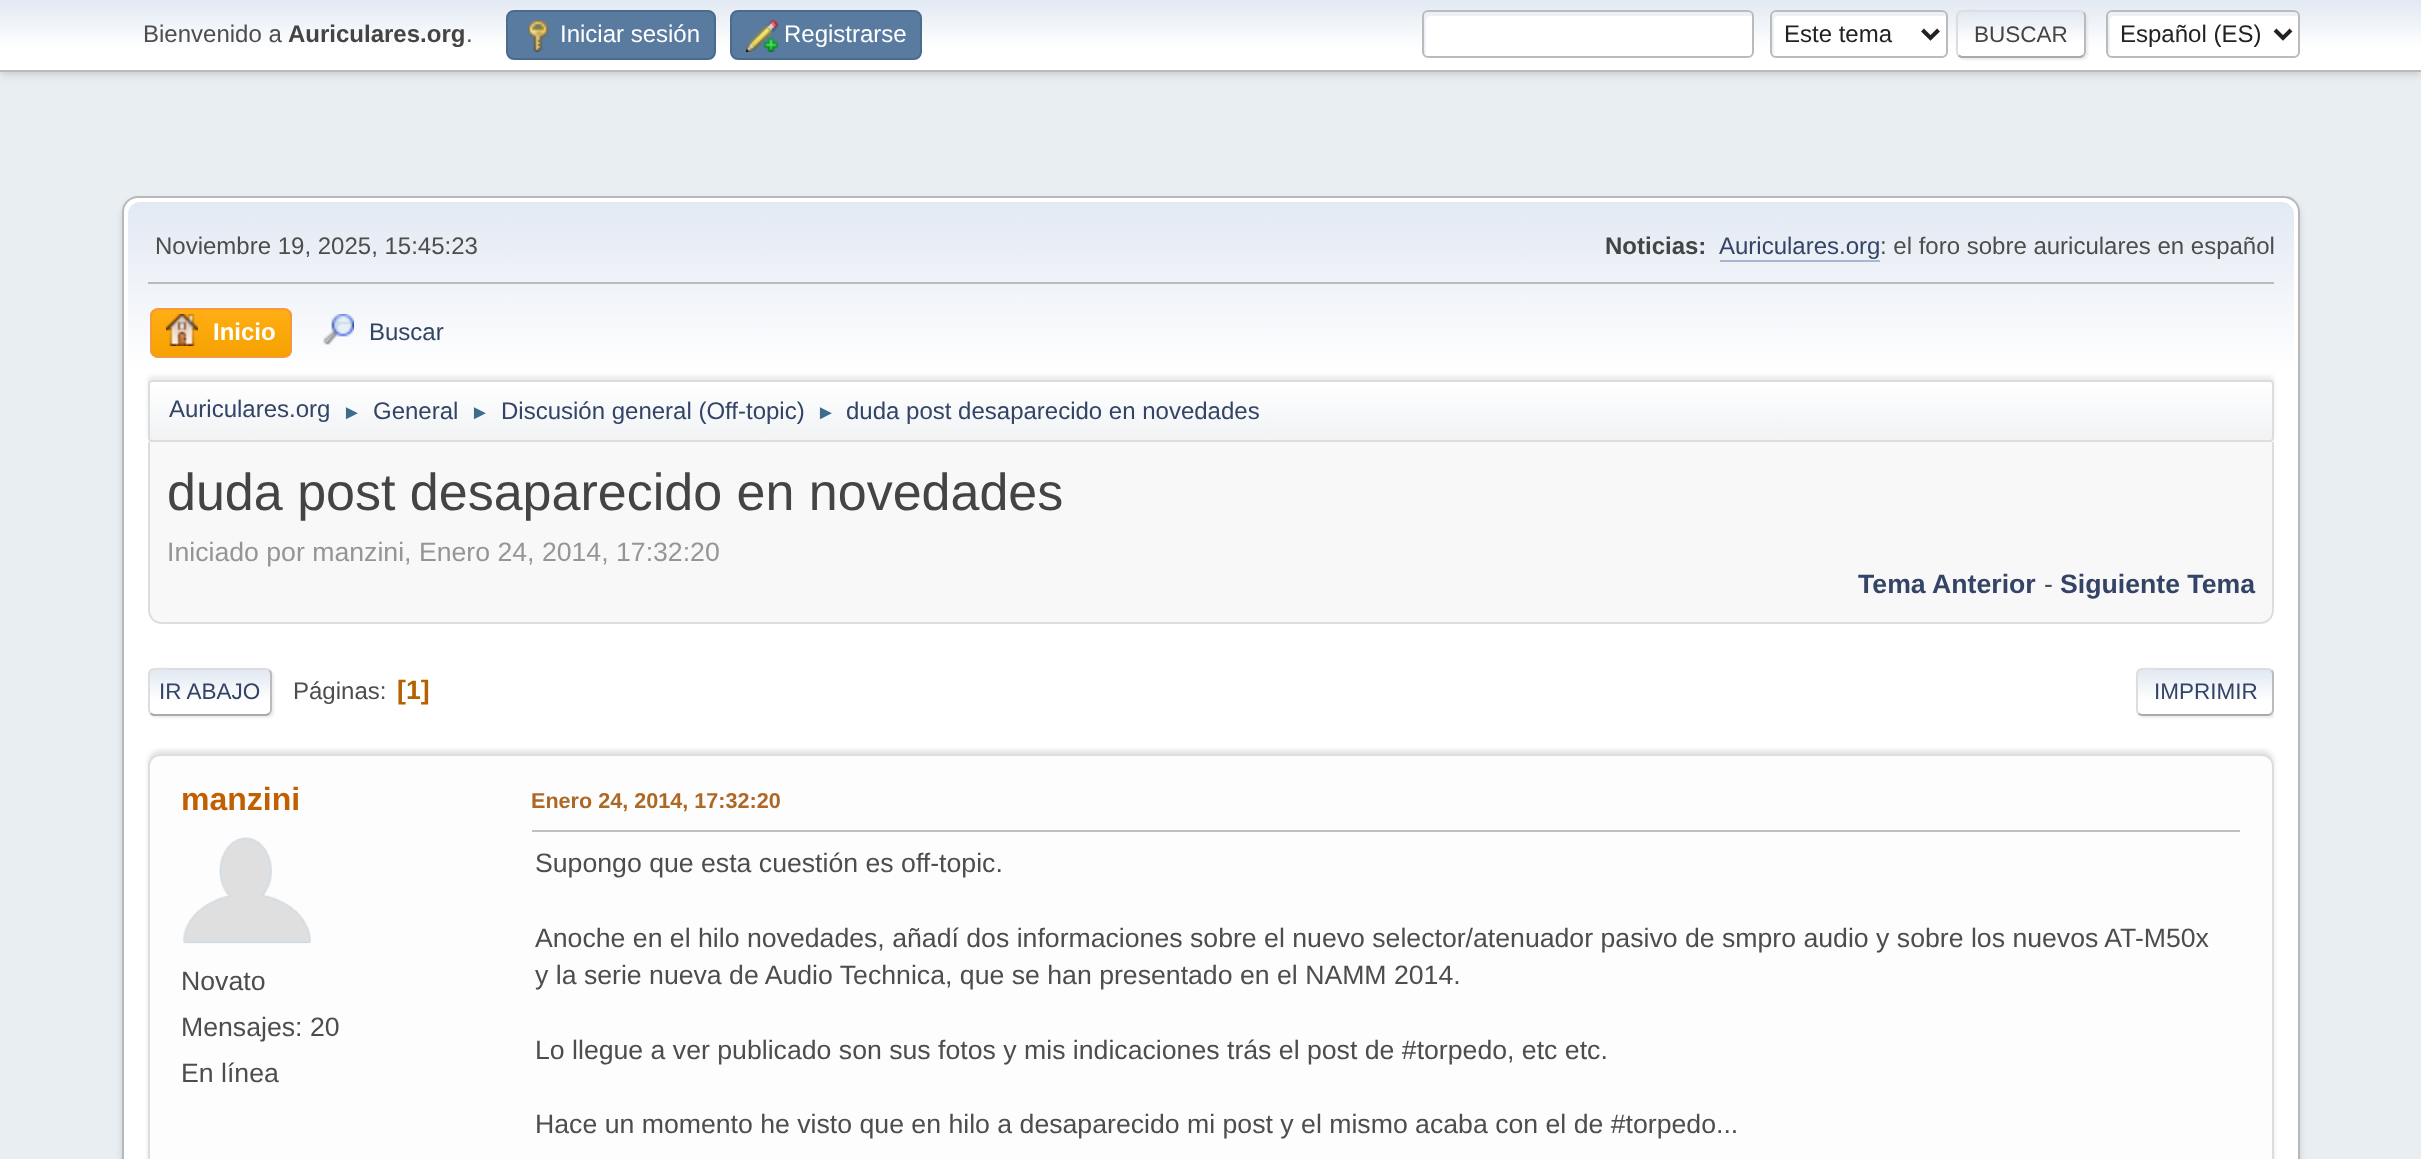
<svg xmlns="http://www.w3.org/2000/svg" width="2421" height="1159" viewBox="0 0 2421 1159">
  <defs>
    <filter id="blur1" x="-50%" y="-200%" width="200%" height="500%"><feGaussianBlur stdDeviation="4"/></filter>
    <linearGradient id="g1" gradientUnits="userSpaceOnUse" x1="1211" y1="0" x2="1211" y2="70"><stop offset="0" stop-color="#e2e9f3"/><stop offset="0.7" stop-color="#ffffff"/></linearGradient>
    <filter id="blur2" x="-50%" y="-200%" width="200%" height="500%"><feGaussianBlur stdDeviation="1"/></filter>
    <clipPath id="clip1"><rect x="1956" y="10" width="130" height="48" rx="6"/></clipPath>
    <linearGradient id="g2" gradientUnits="userSpaceOnUse" x1="2021" y1="12" x2="2021" y2="56"><stop offset="0" stop-color="#e2e9f3"/><stop offset="0.7" stop-color="#ffffff"/></linearGradient>
    <linearGradient id="g3" gradientUnits="userSpaceOnUse" x1="2021" y1="56" x2="2021" y2="100"><stop offset="0" stop-color="#e2e9f3"/><stop offset="0.7" stop-color="#ffffff"/></linearGradient>
    <filter id="blur3" x="-50%" y="-200%" width="200%" height="500%"><feGaussianBlur stdDeviation="3"/></filter>
    <linearGradient id="g4" gradientUnits="userSpaceOnUse" x1="1211" y1="202" x2="1211" y2="446"><stop offset="0" stop-color="#e2e9f3"/><stop offset="0.7" stop-color="#ffffff"/></linearGradient>
    <clipPath id="clip2"><rect x="150" y="308" width="142" height="50" rx="8"/></clipPath>
    <linearGradient id="g5" gradientUnits="userSpaceOnUse" x1="221" y1="310" x2="221" y2="356"><stop offset="0" stop-color="#ffae14"/><stop offset="1" stop-color="#f5a100"/></linearGradient>
    <filter id="blur4" x="-50%" y="-200%" width="200%" height="500%"><feGaussianBlur stdDeviation="2"/></filter>
    <clipPath id="clip3"><rect x="148" y="380" width="2126" height="62" rx="4"/></clipPath>
    <linearGradient id="g6" gradientUnits="userSpaceOnUse" x1="1211" y1="382" x2="1211" y2="440"><stop offset="0" stop-color="#ffffff"/><stop offset="0.95" stop-color="#f1f3f5"/></linearGradient>
    <clipPath id="clip4"><rect x="148" y="668" width="124" height="48" rx="6"/></clipPath>
    <linearGradient id="g7" gradientUnits="userSpaceOnUse" x1="210" y1="670" x2="210" y2="714"><stop offset="0" stop-color="#e2e9f3"/><stop offset="0.7" stop-color="#ffffff"/></linearGradient>
    <linearGradient id="g8" gradientUnits="userSpaceOnUse" x1="210" y1="714" x2="210" y2="758"><stop offset="0" stop-color="#e2e9f3"/><stop offset="0.7" stop-color="#ffffff"/></linearGradient>
    <clipPath id="clip5"><rect x="148" y="654" width="2126" height="76"/></clipPath>
    <clipPath id="clip6"><rect x="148" y="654" width="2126" height="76"/></clipPath>
    <clipPath id="clip7"><rect x="2136" y="668" width="138" height="48" rx="6"/></clipPath>
    <linearGradient id="g9" gradientUnits="userSpaceOnUse" x1="2205" y1="670" x2="2205" y2="714"><stop offset="0" stop-color="#e2e9f3"/><stop offset="0.7" stop-color="#ffffff"/></linearGradient>
  </defs>
  <rect width="100%" height="100%" fill="#e9eef2"/>
  <rect x="0" y="2" width="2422" height="72" fill="#000000" fill-opacity="0.16" filter="url(#blur1)"/>
  <rect x="0" y="0" width="2421" height="70" fill="url(#g1)"/>
  <rect x="0" y="70" width="2421" height="2" fill="#bbbbbb"/>
  <text x="143" y="42" font-family="Liberation Sans" font-size="24" fill="#4d4d4d">Bienvenido a</text>
  <text x="288" y="42" font-family="Liberation Sans" font-size="24" font-weight="bold" fill="#444444">Auriculares.org</text>
  <text x="466" y="42" font-family="Liberation Sans" font-size="24" fill="#4d4d4d">.</text>
  <rect x="507" y="11" width="208" height="48" rx="7" fill="#597b9f" stroke="#4a6b8c" stroke-width="2"/>
  <image x="527" y="20" width="22" height="32" href="img1.png"/>
  <text x="560" y="42" font-family="Liberation Sans" font-size="24" fill="#ffffff">Iniciar sesión</text>
  <rect x="731" y="11" width="190" height="48" rx="7" fill="#597b9f" stroke="#4a6b8c" stroke-width="2"/>
  <image x="746" y="20" width="32" height="32" href="img2.png"/>
  <text x="784" y="42" font-family="Liberation Sans" font-size="24" fill="#ffffff">Registrarse</text>
  <rect x="1422" y="10" width="332" height="48" rx="6" fill="#ffffff"/>
  <path d="M1430 16H1750L1752 17V16C1752 14 1750 12 1748 12H1428C1426 12 1424 14 1424 16V52C1424 53 1425 55 1426 55V20C1426 18 1428 16 1430 16Z" fill="#ecf1f8"/>
  <rect x="1423" y="11" width="330" height="46" rx="5" fill="none" stroke="#bbbbbb" stroke-width="2"/>
  <rect x="1770" y="10" width="178" height="48" rx="6" fill="#ffffff"/>
  <path d="M1778 16H1944L1946 17V16C1946 14 1944 12 1942 12H1776C1774 12 1772 14 1772 16V52C1772 53 1773 55 1774 55V20C1774 18 1776 16 1778 16Z" fill="#ecf1f8"/>
  <rect x="1771" y="11" width="176" height="46" rx="5" fill="none" stroke="#bbbbbb" stroke-width="2"/>
  <path d="M1922.5 30L1930.5 38L1938.5 30" fill="none" stroke="#222222" stroke-width="4"/>
  <text x="1784" y="42" font-family="Liberation Sans" font-size="24" fill="#222222">Este tema</text>
  <rect x="1958" y="12" width="130" height="48" rx="6" fill="#dddddd" fill-opacity="0.57" filter="url(#blur2)"/>
  <g clip-path="url(#clip1)">
    <rect x="1956" y="12" width="130" height="44" fill="url(#g2)"/>
    <rect x="1956" y="56" width="130" height="2" fill="url(#g3)"/>
  </g>
  <path d="M2083.5 12.5C2084.5 13.5 2085 14.5 2085 16V52C2085 53.5 2084.5 54.5 2083.5 55.5" fill="none" stroke="#bbbbbb" stroke-width="2"/>
  <path d="M2083.5 55.5L2080.5 57H1961.5L1958.5 55.5" fill="none" stroke="#aaaaaa" stroke-width="2"/>
  <path d="M1958.5 55.5C1956 53 1957 48.5 1957 46V34C1957 7 1953 11 1981.5 11H2080C2081.5 11 2082.5 11.5 2083.5 12.5" fill="none" stroke="#dddddd" stroke-width="2"/>
  <text x="1974" y="42" font-family="Liberation Sans" font-size="22.5" fill="#444444">BUSCAR</text>
  <rect x="2106" y="10" width="194" height="48" rx="6" fill="#ffffff"/>
  <path d="M2114 16H2296L2298 17V16C2298 14 2296 12 2294 12H2112C2110 12 2108 14 2108 16V52C2108 53 2109 55 2110 55V20C2110 18 2112 16 2114 16Z" fill="#ecf1f8"/>
  <rect x="2107" y="11" width="192" height="46" rx="5" fill="none" stroke="#bbbbbb" stroke-width="2"/>
  <path d="M2275 30L2283 38L2291 30" fill="none" stroke="#222222" stroke-width="4"/>
  <text x="2120" y="42" font-family="Liberation Sans" font-size="24" fill="#222222">Español (ES)</text>
  <rect x="122" y="200" width="2178" height="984" rx="16" fill="#000000" fill-opacity="0.14" filter="url(#blur3)"/>
  <rect x="123" y="197" width="2176" height="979" rx="15" fill="#ffffff" stroke="#b8b8b8" stroke-width="2"/>
  <path d="M140 202H2282C2288.5 202 2294 207.5 2294 214V446H128V214C128 207.5 133.5 202 140 202Z" fill="url(#g4)"/>
  <rect x="148" y="282" width="2126" height="2" fill="#bbbbbb"/>
  <text x="155" y="254" font-family="Liberation Sans" font-size="24" fill="#4d4d4d">Noviembre 19, 2025, 15:45:23</text>
  <text x="1605" y="254" font-family="Liberation Sans" font-size="24" font-weight="bold" fill="#444444">Noticias:</text>
  <text x="1719" y="254" font-family="Liberation Sans" font-size="24" fill="#334466">Auriculares.org</text>
  <rect x="1720" y="260" width="160" height="2" fill="#a8b6cf"/>
  <text x="1880" y="254" font-family="Liberation Sans" font-size="24" fill="#4d4d4d">: el foro sobre auriculares en español</text>
  <g clip-path="url(#clip2)">
    <rect x="150" y="310" width="142" height="46" fill="url(#g5)"/>
  </g>
  <rect x="151" y="309" width="140" height="48" rx="7" fill="none" stroke="#f49a3a" stroke-width="2"/>
  <image x="166" y="314" width="32" height="32" href="img3.png"/>
  <text x="213" y="340" font-family="Liberation Sans" font-size="24" font-weight="bold" fill="#ffffff">Inicio</text>
  <image x="323" y="314" width="31" height="31" href="img4.png"/>
  <text x="369" y="340" font-family="Liberation Sans" font-size="24" fill="#334466">Buscar</text>
  <rect x="148" y="376" width="2126" height="62" rx="4" fill="#000000" fill-opacity="0.08" filter="url(#blur4)"/>
  <g clip-path="url(#clip3)">
    <rect x="148" y="382" width="2126" height="58" fill="url(#g6)"/>
  </g>
  <rect x="149" y="381" width="2124" height="60" rx="3" fill="none" stroke="#dddddd" stroke-width="2"/>
  <text x="169" y="417" font-family="Liberation Sans" font-size="24" fill="#334466">Auriculares.org</text>
  <text x="342" y="419" font-family="Liberation Sans" font-size="20" fill="#3f6b8c">►</text>
  <text x="373" y="419" font-family="Liberation Sans" font-size="24" fill="#334466">General</text>
  <text x="470" y="419" font-family="Liberation Sans" font-size="20" fill="#3f6b8c">►</text>
  <text x="501" y="419" font-family="Liberation Sans" font-size="24" fill="#334466">Discusión general (Off-topic)</text>
  <text x="816" y="419" font-family="Liberation Sans" font-size="20" fill="#3f6b8c">►</text>
  <text x="846" y="419" font-family="Liberation Sans" font-size="24" fill="#334466">duda post desaparecido en novedades</text>
  <path d="M148 442H2274V610C2274 617.5 2267.5 624 2260 624H162C154.5 624 148 617.5 148 610Z" fill="#f8f8f8"/>
  <path d="M148 442H2274V610C2274 618 2268 624 2260 624H162C154 624 148 618 148 610ZM150 442H2272V610C2272 617 2267 622 2260 622H162C155 622 150 617 150 610Z" fill="#dddddd" fill-rule="evenodd"/>
  <text x="167" y="510" font-family="Liberation Sans" font-size="52" fill="#444444">duda post desaparecido en novedades</text>
  <text x="167" y="561" font-family="Liberation Sans" font-size="26.67" fill="#959595">Iniciado por manzini, Enero 24, 2014, 17:32:20</text>
  <text x="1858" y="593" font-family="Liberation Sans" font-size="26.67" font-weight="bold" fill="#334466">Tema Anterior</text>
  <text x="2044" y="593" font-family="Liberation Sans" font-size="26.67" fill="#4d4d4d">-</text>
  <text x="2060" y="593" font-family="Liberation Sans" font-size="26.67" font-weight="bold" fill="#334466">Siguiente Tema</text>
  <rect x="150" y="670" width="124" height="48" rx="6" fill="#dddddd" fill-opacity="0.57" filter="url(#blur2)"/>
  <g clip-path="url(#clip4)">
    <rect x="148" y="670" width="124" height="44" fill="url(#g7)"/>
    <rect x="148" y="714" width="124" height="2" fill="url(#g8)"/>
  </g>
  <path d="M269.5 670.5C270.5 671.5 271 672.5 271 674V710C271 711.5 270.5 712.5 269.5 713.5" fill="none" stroke="#bbbbbb" stroke-width="2"/>
  <path d="M269.5 713.5L266.5 715H153.5L150.5 713.5" fill="none" stroke="#aaaaaa" stroke-width="2"/>
  <g clip-path="url(#clip5)">
    <path d="M150.5 713.5C148 711 149 706.5 149 704V692C149 665 145 669 172.5 669H266C267.5 669 268.5 669.5 269.5 670.5" fill="none" stroke="#dddddd" stroke-width="2"/>
  </g>
  <text x="159" y="699" font-family="Liberation Sans" font-size="22.5" fill="#334466">IR ABAJO</text>
  <text x="293" y="699" font-family="Liberation Sans" font-size="24" fill="#4d4d4d">Páginas:</text>
  <text x="397" y="699" font-family="Liberation Sans" font-size="26.67" font-weight="bold" fill="#b46100">[1]</text>
  <g clip-path="url(#clip6)">
    <rect x="2138" y="670" width="138" height="48" rx="6" fill="#dddddd" fill-opacity="0.57" filter="url(#blur2)"/>
  </g>
  <rect x="2136" y="668" width="138" height="48" rx="6" fill="#ffffff"/>
  <g clip-path="url(#clip7)">
    <rect x="2136" y="670" width="138" height="44" fill="url(#g9)"/>
  </g>
  <path d="M2271.5 670.5C2272.5 671.5 2273 672.5 2273 674V710C2273 711.5 2272.5 712.5 2271.5 713.5" fill="none" stroke="#bbbbbb" stroke-width="2"/>
  <path d="M2271.5 713.5C2270.5 714.5 2269.5 715 2268 715H2142C2140.5 715 2139.5 714.5 2138.5 713.5" fill="none" stroke="#aaaaaa" stroke-width="2"/>
  <path d="M2138.5 713.5C2136 711 2137 706.5 2137 704V692C2137 664 2133 669 2163 669H2268C2269.5 669 2270.5 669.5 2271.5 670.5" fill="none" stroke="#dddddd" stroke-width="2"/>
  <text x="2154" y="699" font-family="Liberation Sans" font-size="22.5" fill="#334466">IMPRIMIR</text>
  <rect x="148" y="750" width="2126" height="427" rx="12" fill="#000000" fill-opacity="0.1" filter="url(#blur4)"/>
  <rect x="149" y="755" width="2124" height="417" rx="11" fill="#fdfdfd" stroke="#dddddd" stroke-width="2"/>
  <text x="181" y="810" font-family="Liberation Sans" font-size="32" font-weight="bold" fill="#c06002">manzini</text>
  <image x="183" y="837" width="128" height="107" href="img5.png"/>
  <text x="181" y="990" font-family="Liberation Sans" font-size="26.67" fill="#4d4d4d">Novato</text>
  <text x="181" y="1036" font-family="Liberation Sans" font-size="26.67" fill="#4d4d4d">Mensajes: 20</text>
  <text x="181" y="1082" font-family="Liberation Sans" font-size="26.67" fill="#4d4d4d">En línea</text>
  <text x="531" y="808" font-family="Liberation Sans" font-size="21.6" font-weight="bold" fill="#ad6825">Enero 24, 2014, 17:32:20</text>
  <rect x="532" y="830" width="1708" height="2" fill="#bfbfbf"/>
  <text x="535" y="872" font-family="Liberation Sans" font-size="26.67" fill="#4d4d4d">Supongo que esta cuestión es off-topic.</text>
  <text x="535" y="947" font-family="Liberation Sans" font-size="26.67" fill="#4d4d4d">Anoche en el hilo novedades, añadí dos informaciones sobre el nuevo selector/atenuador pasivo de smpro audio y sobre los nuevos AT-M50x</text>
  <text x="535" y="984" font-family="Liberation Sans" font-size="26.67" fill="#4d4d4d">y la serie nueva de Audio Technica, que se han presentado en el NAMM 2014.</text>
  <text x="535" y="1059" font-family="Liberation Sans" font-size="26.67" fill="#4d4d4d">Lo llegue a ver publicado son sus fotos y mis indicaciones trás el post de #torpedo, etc etc.</text>
  <text x="535" y="1133" font-family="Liberation Sans" font-size="26.67" fill="#4d4d4d">Hace un momento he visto que en hilo a desaparecido mi post y el mismo acaba con el de #torpedo...</text>
</svg>
